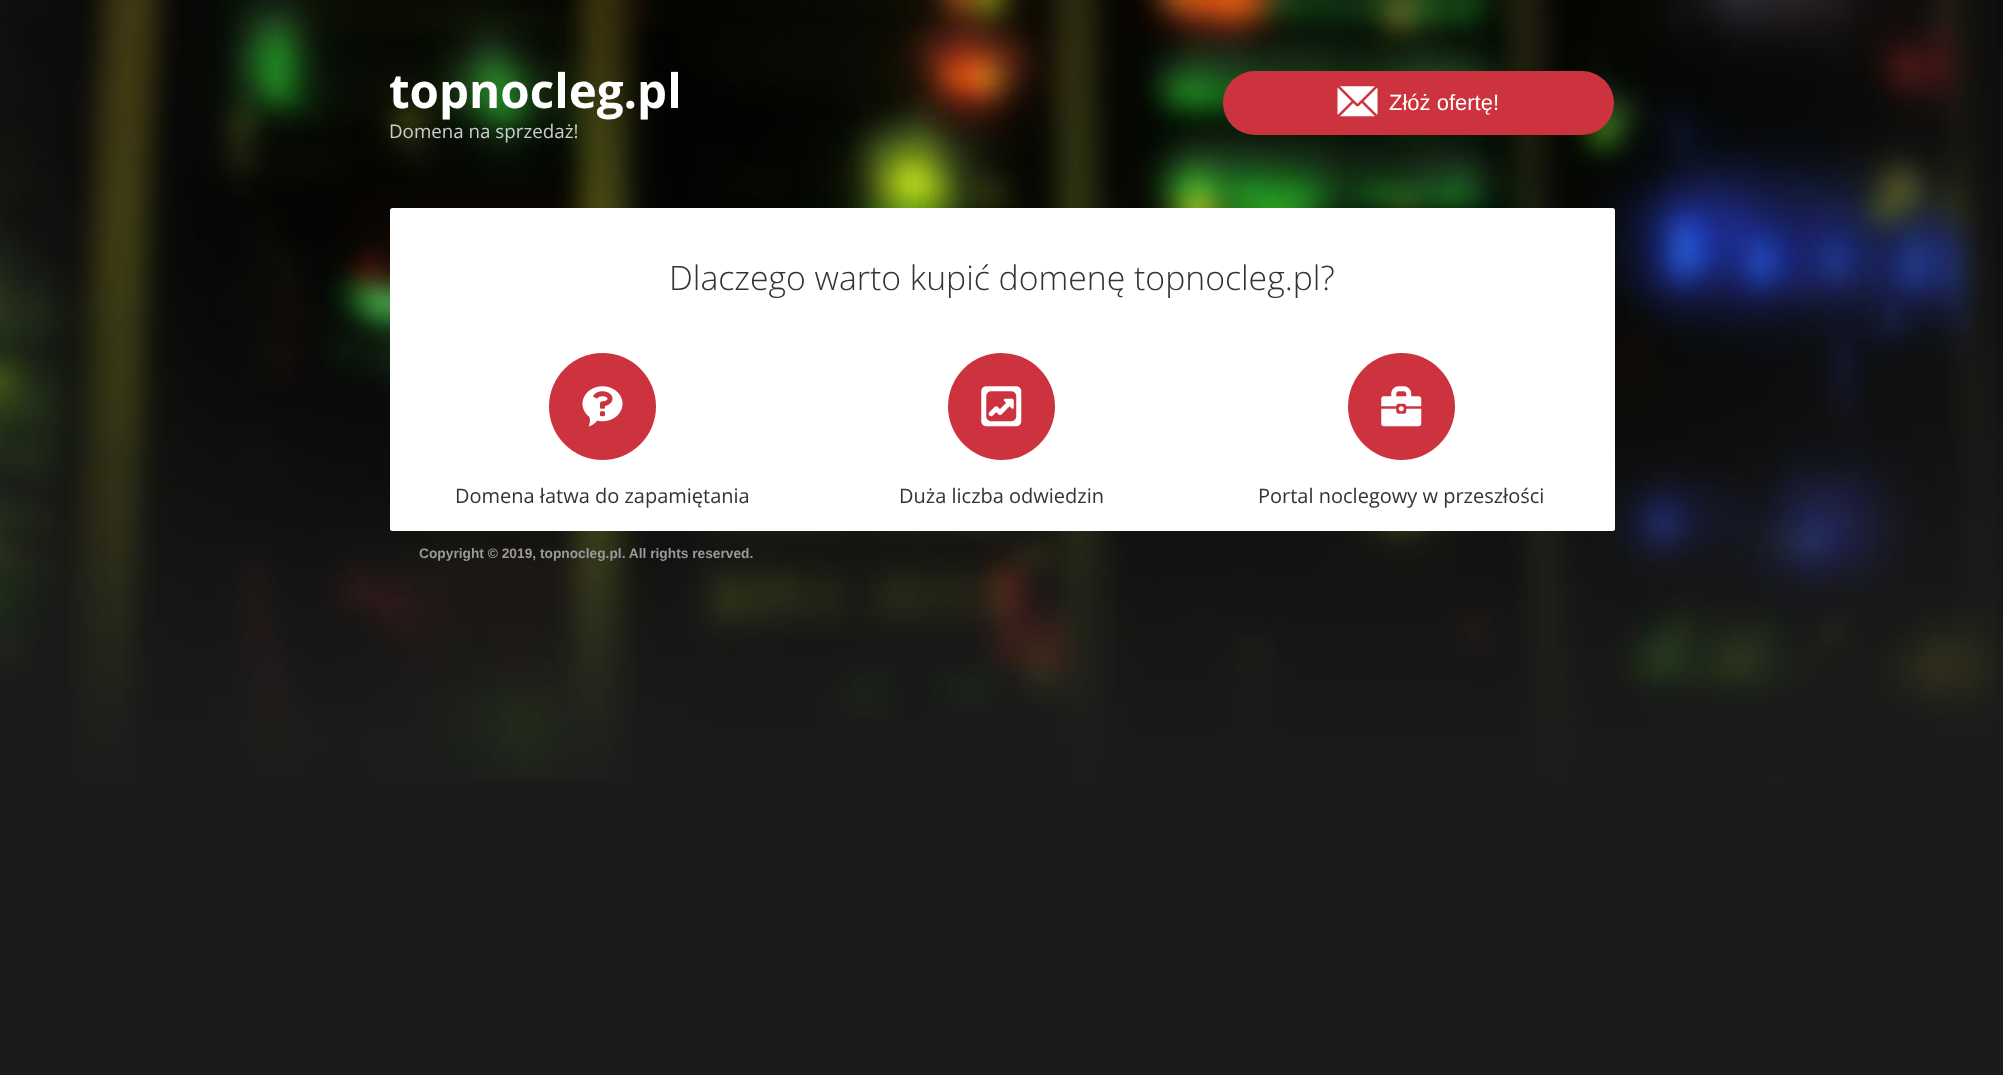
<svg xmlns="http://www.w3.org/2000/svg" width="2003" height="1075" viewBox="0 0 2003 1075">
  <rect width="100%" height="100%" fill="#1b1b1b"/>
  <image x="0" y="0" width="2003" height="779" href="img1.png"/>
  <text x="389" y="108" font-family="Open Sans" font-size="47.5" font-weight="bold" fill="#ffffff">topnocleg.pl</text>
  <text x="389" y="138" font-family="Open Sans" font-size="18.75" fill="#cccccc">Domena na sprzedaż!</text>
  <rect x="1223" y="71" width="391" height="64" rx="32" fill="#cc333f"/>
  <image x="1337" y="86" width="41" height="31" href="img2.png"/>
  <text x="1389" y="110" font-family="Liberation Sans" font-size="22" fill="#ffffff">Złóż ofertę!</text>
  <rect x="390" y="208" width="1225" height="323" rx="2.5" fill="#ffffff"/>
  <text x="669" y="290" font-family="Open Sans" font-size="33.75" font-weight="300" fill="#333333">Dlaczego warto kupić domenę topnocleg.pl?</text>
  <circle cx="602.5" cy="406.5" r="53.5" fill="#cc333f"/>
  <image x="582" y="386" width="41" height="41" href="img3.png"/>
  <text x="455" y="503" font-family="Open Sans" font-size="20" fill="#333333">Domena łatwa do zapamiętania</text>
  <circle cx="1001.5" cy="406.5" r="53.5" fill="#cc333f"/>
  <image x="981" y="386" width="41" height="41" href="img4.png"/>
  <text x="899" y="503" font-family="Open Sans" font-size="20" fill="#333333">Duża liczba odwiedzin</text>
  <circle cx="1401.5" cy="406.5" r="53.5" fill="#cc333f"/>
  <image x="1381" y="386" width="41" height="41" href="img5.png"/>
  <text x="1258" y="503" font-family="Open Sans" font-size="20" fill="#333333">Portal noclegowy w przeszłości</text>
  <text x="419" y="558" font-family="Liberation Sans" font-size="13.75" font-weight="bold" fill="#999999">Copyright © 2019, topnocleg.pl. All rights reserved.</text>
</svg>
